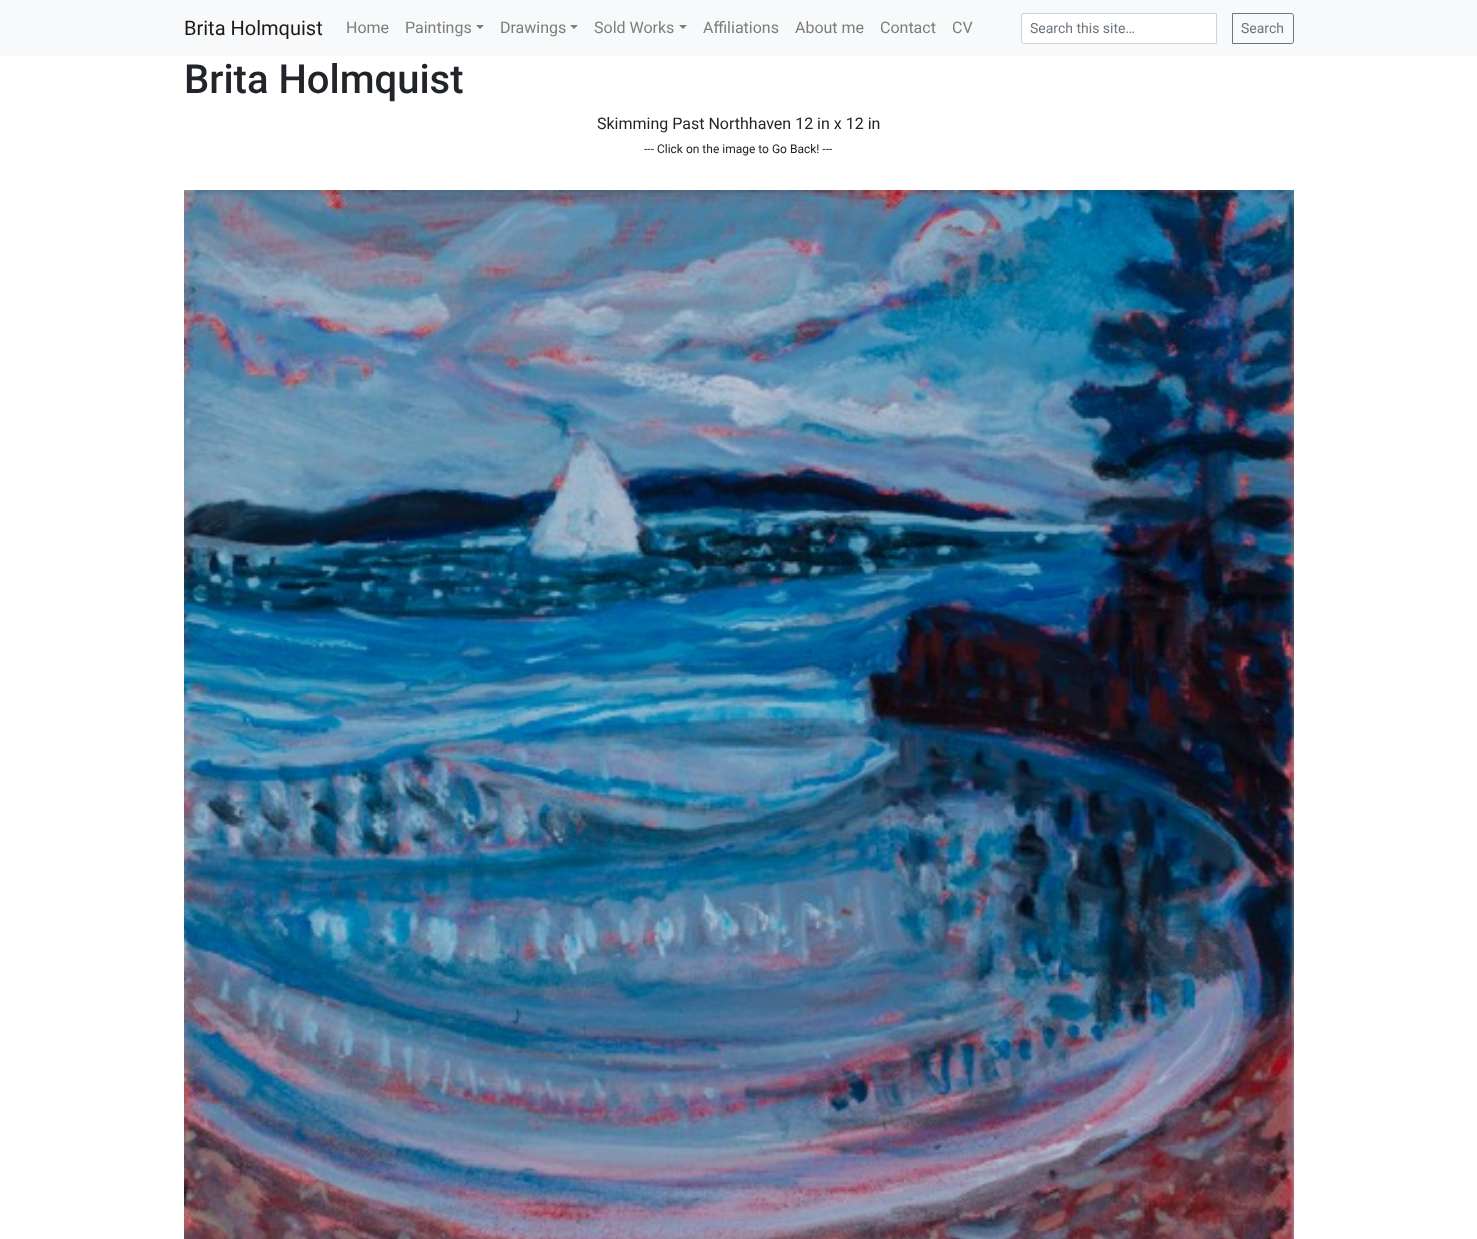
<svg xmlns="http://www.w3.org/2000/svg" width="1477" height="1239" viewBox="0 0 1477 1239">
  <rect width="100%" height="100%" fill="#ffffff"/>
  <rect x="0" y="0" width="1477" height="56" fill="#f8f9fa"/>
  <text x="184" y="35" font-family="Roboto" font-size="20" fill="#191919">Brita Holmquist</text>
  <text x="346" y="33" font-family="Roboto" font-size="16" fill="#7c7d7d">Home</text>
  <text x="405" y="33" font-family="Roboto" font-size="16" fill="#7c7d7d">Paintings</text>
  <path d="M476 25H484L480 29Z" fill="#7c7d7d"/>
  <text x="500" y="33" font-family="Roboto" font-size="16" fill="#7c7d7d">Drawings</text>
  <path d="M570 25H578L574 29Z" fill="#7c7d7d"/>
  <text x="594" y="33" font-family="Roboto" font-size="16" fill="#7c7d7d">Sold Works</text>
  <path d="M679 25H687L683 29Z" fill="#7c7d7d"/>
  <text x="703" y="33" font-family="Roboto" font-size="16" fill="#7c7d7d">Affiliations</text>
  <text x="795" y="33" font-family="Roboto" font-size="16" fill="#7c7d7d">About me</text>
  <text x="880" y="33" font-family="Roboto" font-size="16" fill="#7c7d7d">Contact</text>
  <text x="952" y="33" font-family="Roboto" font-size="16" fill="#7c7d7d">CV</text>
  <path d="M1024 13.5H1216.5V43.5H1024C1022.5 43.5 1021.5 42.5 1021.5 41V16C1021.5 14.5 1022.5 13.5 1024 13.5Z" fill="#ffffff" stroke="#ced4da"/>
  <text x="1030" y="33" font-family="Roboto" font-size="14" fill="#6c757d">Search this site…</text>
  <path d="M1232.5 13.5H1291C1292.5 13.5 1293.5 14.5 1293.5 16V41C1293.5 42.5 1292.5 43.5 1291 43.5H1232.5Z" fill="none" stroke="#6c757d"/>
  <text x="1241" y="33" font-family="Roboto" font-size="14" fill="#6c757d">Search</text>
  <text x="184" y="93" font-family="Roboto" font-size="40" font-weight="500" fill="#212529">Brita Holmquist</text>
  <text x="597" y="129" font-family="Roboto" font-size="16" fill="#212529">Skimming Past Northhaven 12 in x 12 in</text>
  <text x="644" y="153" font-family="Roboto" font-size="12" fill="#212529">--- Click on the image to Go Back! ---</text>
  <image x="184" y="190" width="1110" height="1049" href="img1.png"/>
</svg>
